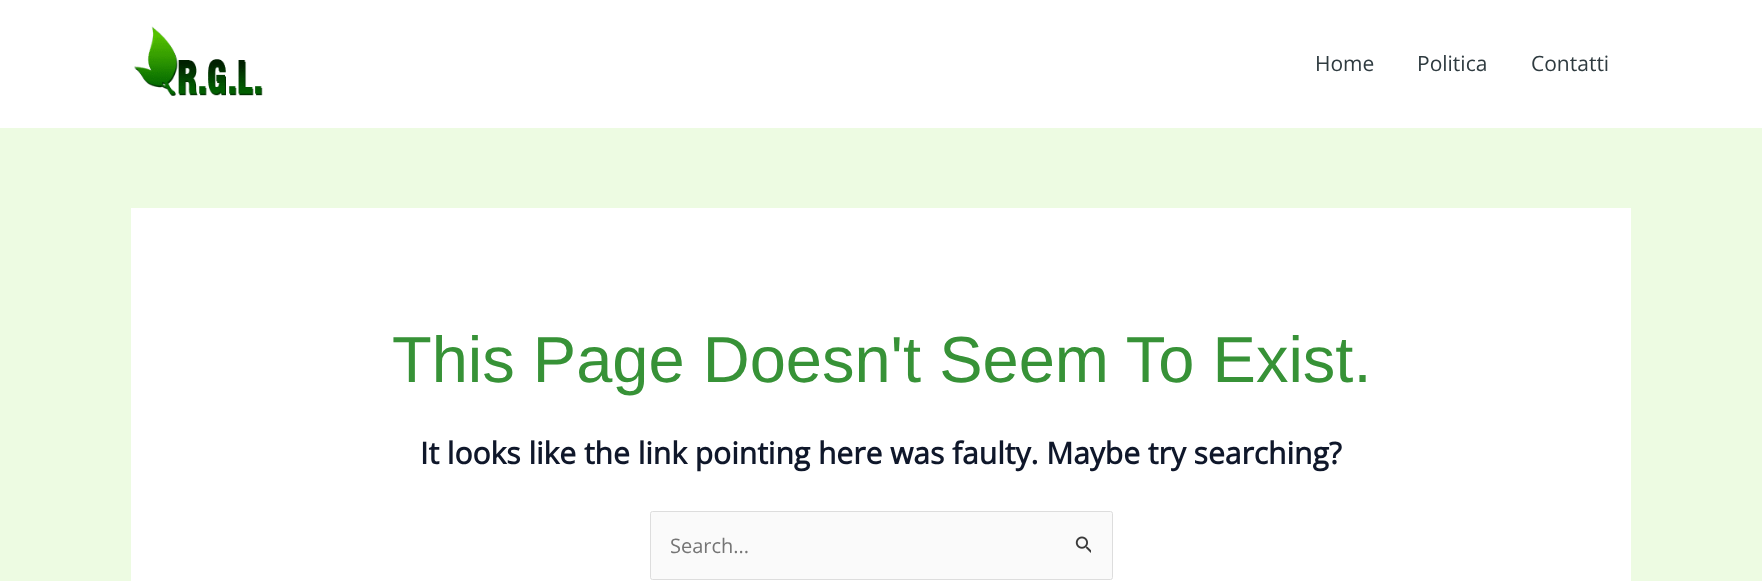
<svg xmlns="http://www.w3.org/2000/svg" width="1762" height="581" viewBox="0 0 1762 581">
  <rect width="100%" height="100%" fill="#edfbe2"/>
  <rect x="0" y="0" width="1762" height="128" fill="#ffffff"/>
  <image x="134" y="26" width="129" height="70" href="img1.png"/>
  <text x="1315" y="71" font-family="Open Sans" font-size="21" fill="#2f3b40">Home</text>
  <text x="1417" y="71" font-family="Open Sans" font-size="21" fill="#2f3b40">Politica</text>
  <text x="1531" y="71" font-family="Open Sans" font-size="21" fill="#2f3b40">Contatti</text>
  <rect x="131" y="208" width="1500" height="373" fill="#ffffff"/>
  <text x="392" y="382" font-family="Liberation Sans" font-size="65" fill="#379237">This Page Doesn't Seem To Exist.</text>
  <text x="420" y="464" font-family="Open Sans" font-size="30" font-weight="bold" fill="#0f172a">It looks like the link pointing here was faulty. Maybe try searching?</text>
  <rect x="650.5" y="511.5" width="462" height="68" rx="2" fill="#fafafa" stroke="#dddddd"/>
  <text x="670" y="553" font-family="Open Sans" font-size="20" fill="#757575">Search...</text>
  <image x="1075" y="536" width="16" height="17" href="img2.png"/>
</svg>
